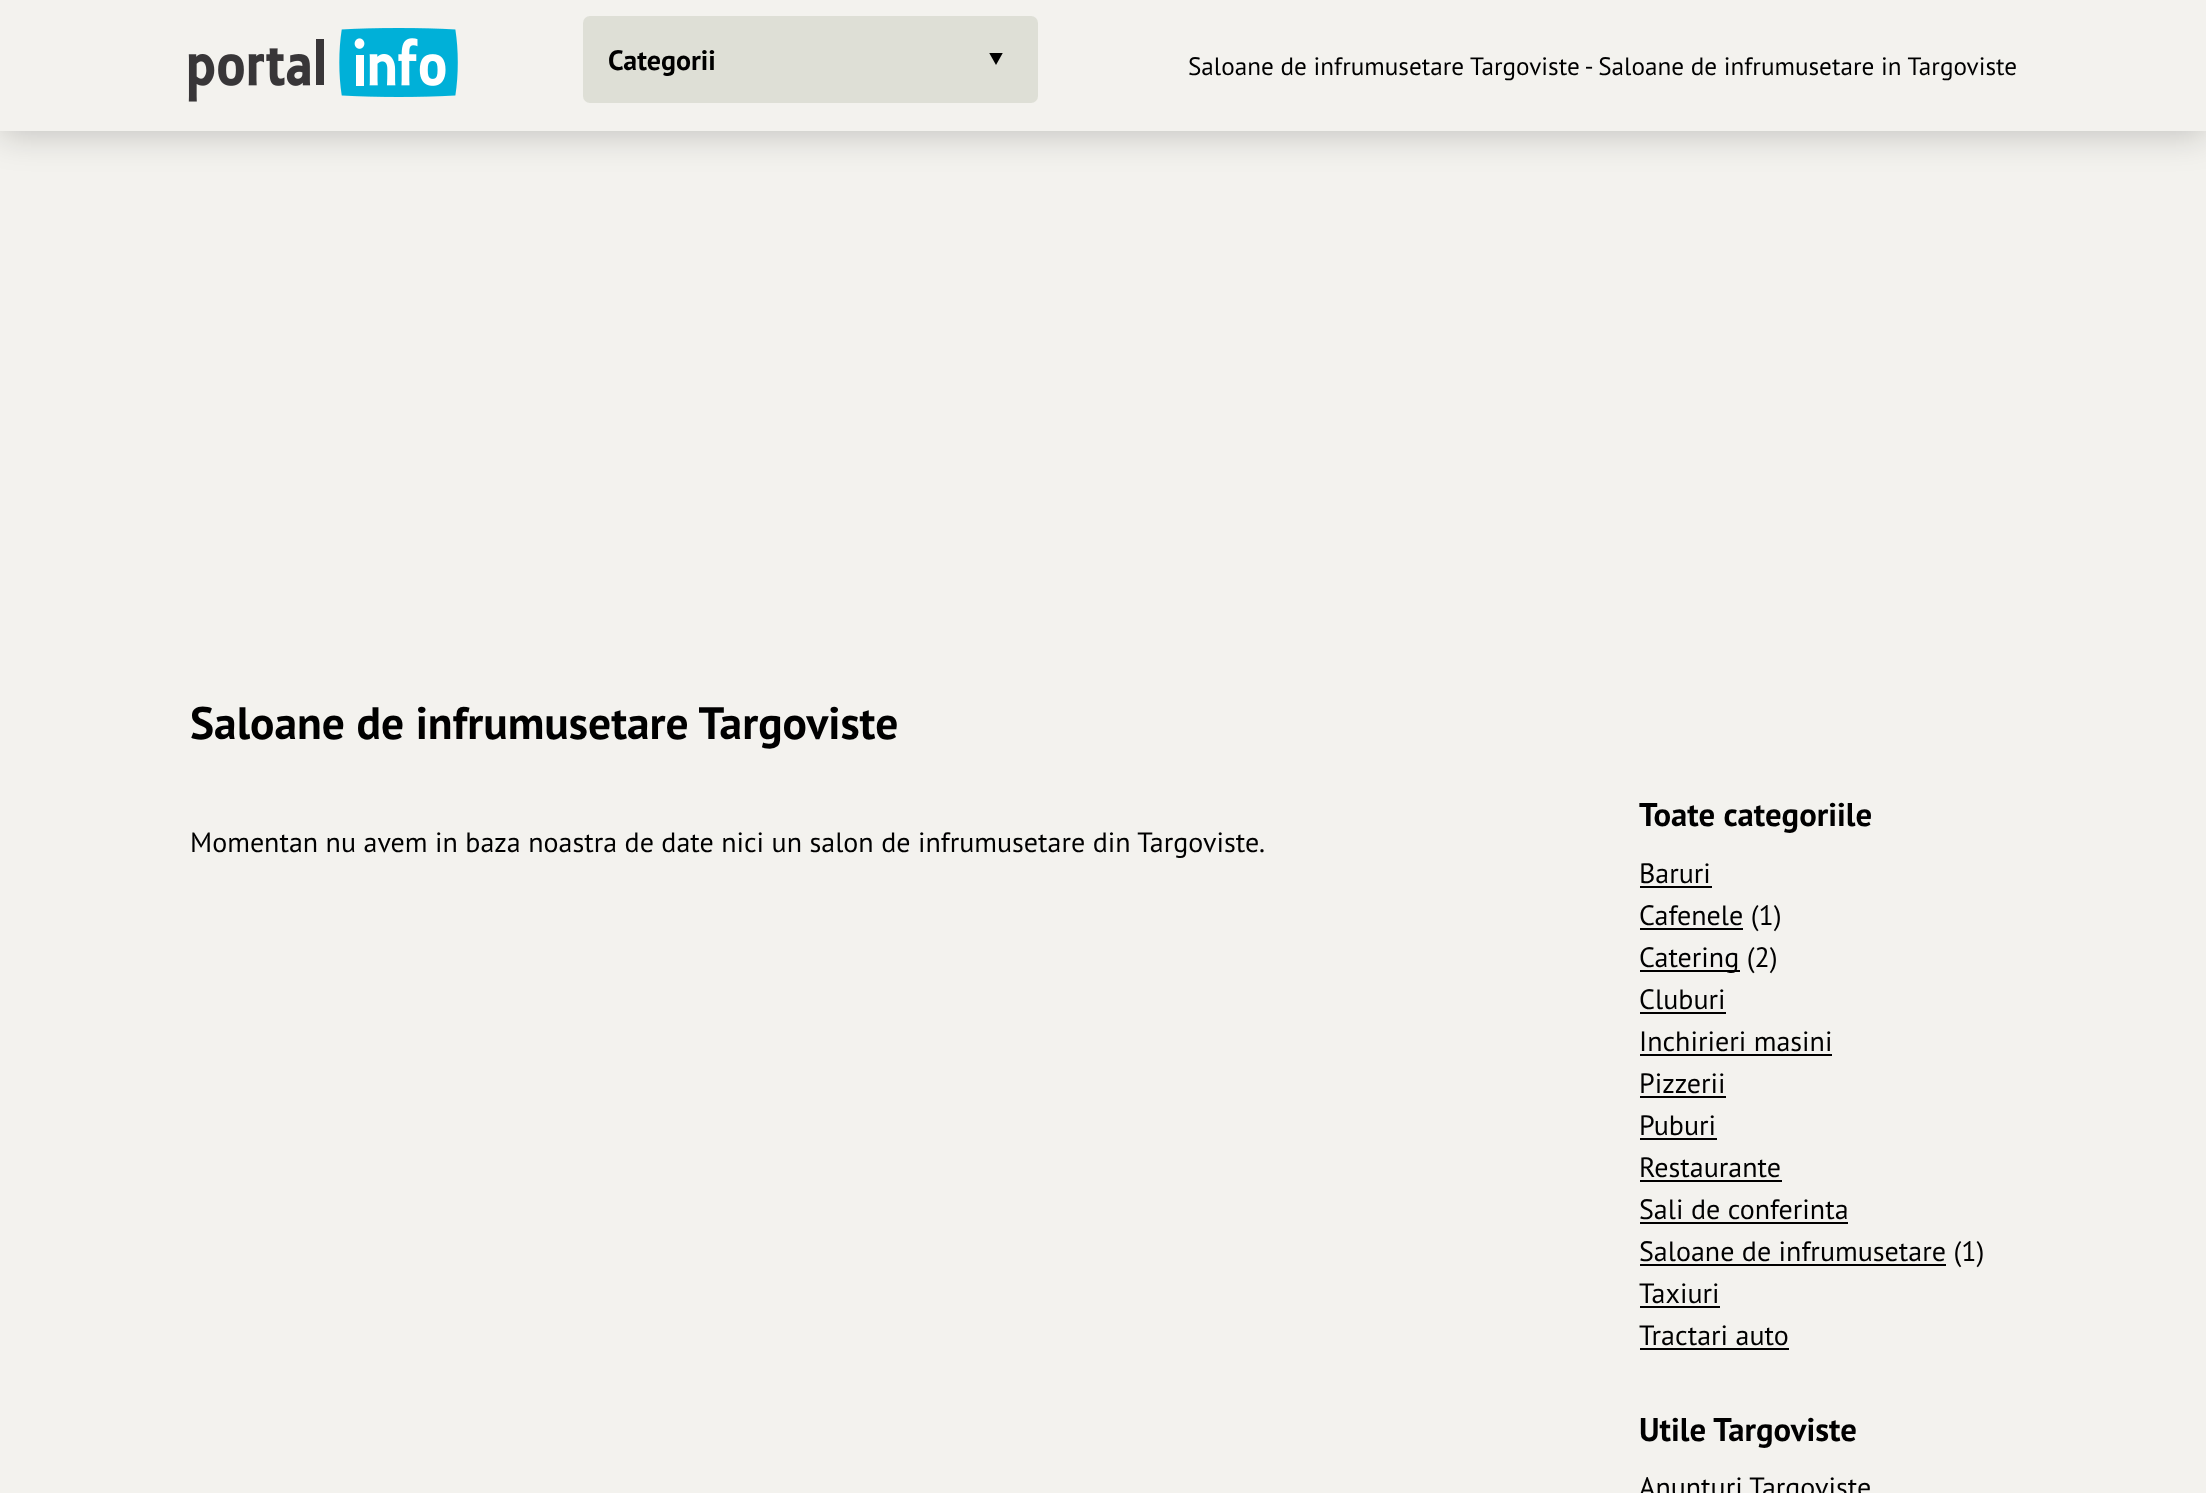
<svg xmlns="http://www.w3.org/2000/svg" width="2206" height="1493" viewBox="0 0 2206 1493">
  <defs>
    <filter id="blur1" x="-50%" y="-200%" width="200%" height="500%"><feGaussianBlur stdDeviation="17.5"/></filter>
    <clipPath id="clip1"><rect x="989" y="53" width="14" height="14"/></clipPath>
  </defs>
  <rect width="100%" height="100%" fill="#f3f2ee"/>
  <rect x="0" y="4" width="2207" height="131" fill="#000000" fill-opacity="0.2" filter="url(#blur1)"/>
  <rect x="0" y="0" width="2206" height="131" fill="#f3f2ee"/>
  <image x="188" y="28" width="270" height="74" href="img1.png"/>
  <rect x="583" y="16" width="455" height="87" rx="7" fill="#dedfd6"/>
  <g clip-path="url(#clip1)">
    <path d="M989 52.5H1003L996 65Z" fill="#000000"/>
  </g>
  <text x="608" y="70" font-family="PT Sans" font-size="28" font-weight="bold" fill="#000000">Categorii</text>
  <text x="1188" y="75" font-family="PT Sans" font-size="25.2" fill="#000000">Saloane de infrumusetare Targoviste - Saloane de infrumusetare in Targoviste</text>
  <text x="190" y="739" font-family="PT Sans" font-size="45.5" font-weight="bold" fill="#000000">Saloane de infrumusetare Targoviste</text>
  <text x="190" y="852" font-family="PT Sans" font-size="28" fill="#000000">Momentan nu avem in baza noastra de date nici un salon de infrumusetare din Targoviste.</text>
  <text x="1639" y="826" font-family="PT Sans" font-size="32.75" font-weight="bold" fill="#000000">Toate categoriile</text>
  <text x="1639" y="883" font-family="PT Sans" font-size="28" fill="#000000">Baruri</text>
  <rect x="1640" y="886" width="72" height="2" fill="#000000"/>
  <rect x="1640" y="928" width="103" height="2" fill="#000000"/>
  <text x="1639" y="925" font-family="PT Sans" font-size="28" fill="#000000">Cafenele (1)</text>
  <rect x="1640" y="970" width="100" height="2" fill="#000000"/>
  <text x="1639" y="967" font-family="PT Sans" font-size="28" fill="#000000">Catering (2)</text>
  <text x="1639" y="1009" font-family="PT Sans" font-size="28" fill="#000000">Cluburi</text>
  <rect x="1640" y="1012" width="86" height="2" fill="#000000"/>
  <text x="1639" y="1051" font-family="PT Sans" font-size="28" fill="#000000">Inchirieri masini</text>
  <rect x="1640" y="1054" width="192" height="2" fill="#000000"/>
  <text x="1639" y="1093" font-family="PT Sans" font-size="28" fill="#000000">Pizzerii</text>
  <rect x="1640" y="1096" width="86" height="2" fill="#000000"/>
  <text x="1639" y="1135" font-family="PT Sans" font-size="28" fill="#000000">Puburi</text>
  <rect x="1640" y="1138" width="77" height="2" fill="#000000"/>
  <text x="1639" y="1177" font-family="PT Sans" font-size="28" fill="#000000">Restaurante</text>
  <rect x="1640" y="1180" width="142" height="2" fill="#000000"/>
  <text x="1639" y="1219" font-family="PT Sans" font-size="28" fill="#000000">Sali de conferinta</text>
  <rect x="1640" y="1222" width="208" height="2" fill="#000000"/>
  <rect x="1640" y="1264" width="306" height="2" fill="#000000"/>
  <text x="1639" y="1261" font-family="PT Sans" font-size="28" fill="#000000">Saloane de infrumusetare (1)</text>
  <text x="1639" y="1303" font-family="PT Sans" font-size="28" fill="#000000">Taxiuri</text>
  <rect x="1640" y="1306" width="80" height="2" fill="#000000"/>
  <text x="1639" y="1345" font-family="PT Sans" font-size="28" fill="#000000">Tractari auto</text>
  <rect x="1640" y="1348" width="149" height="2" fill="#000000"/>
  <text x="1639" y="1441" font-family="PT Sans" font-size="32.75" font-weight="bold" fill="#000000">Utile Targoviste</text>
  <text x="1639" y="1497" font-family="PT Sans" font-size="28" fill="#000000">Anunturi Targoviste</text>
</svg>
